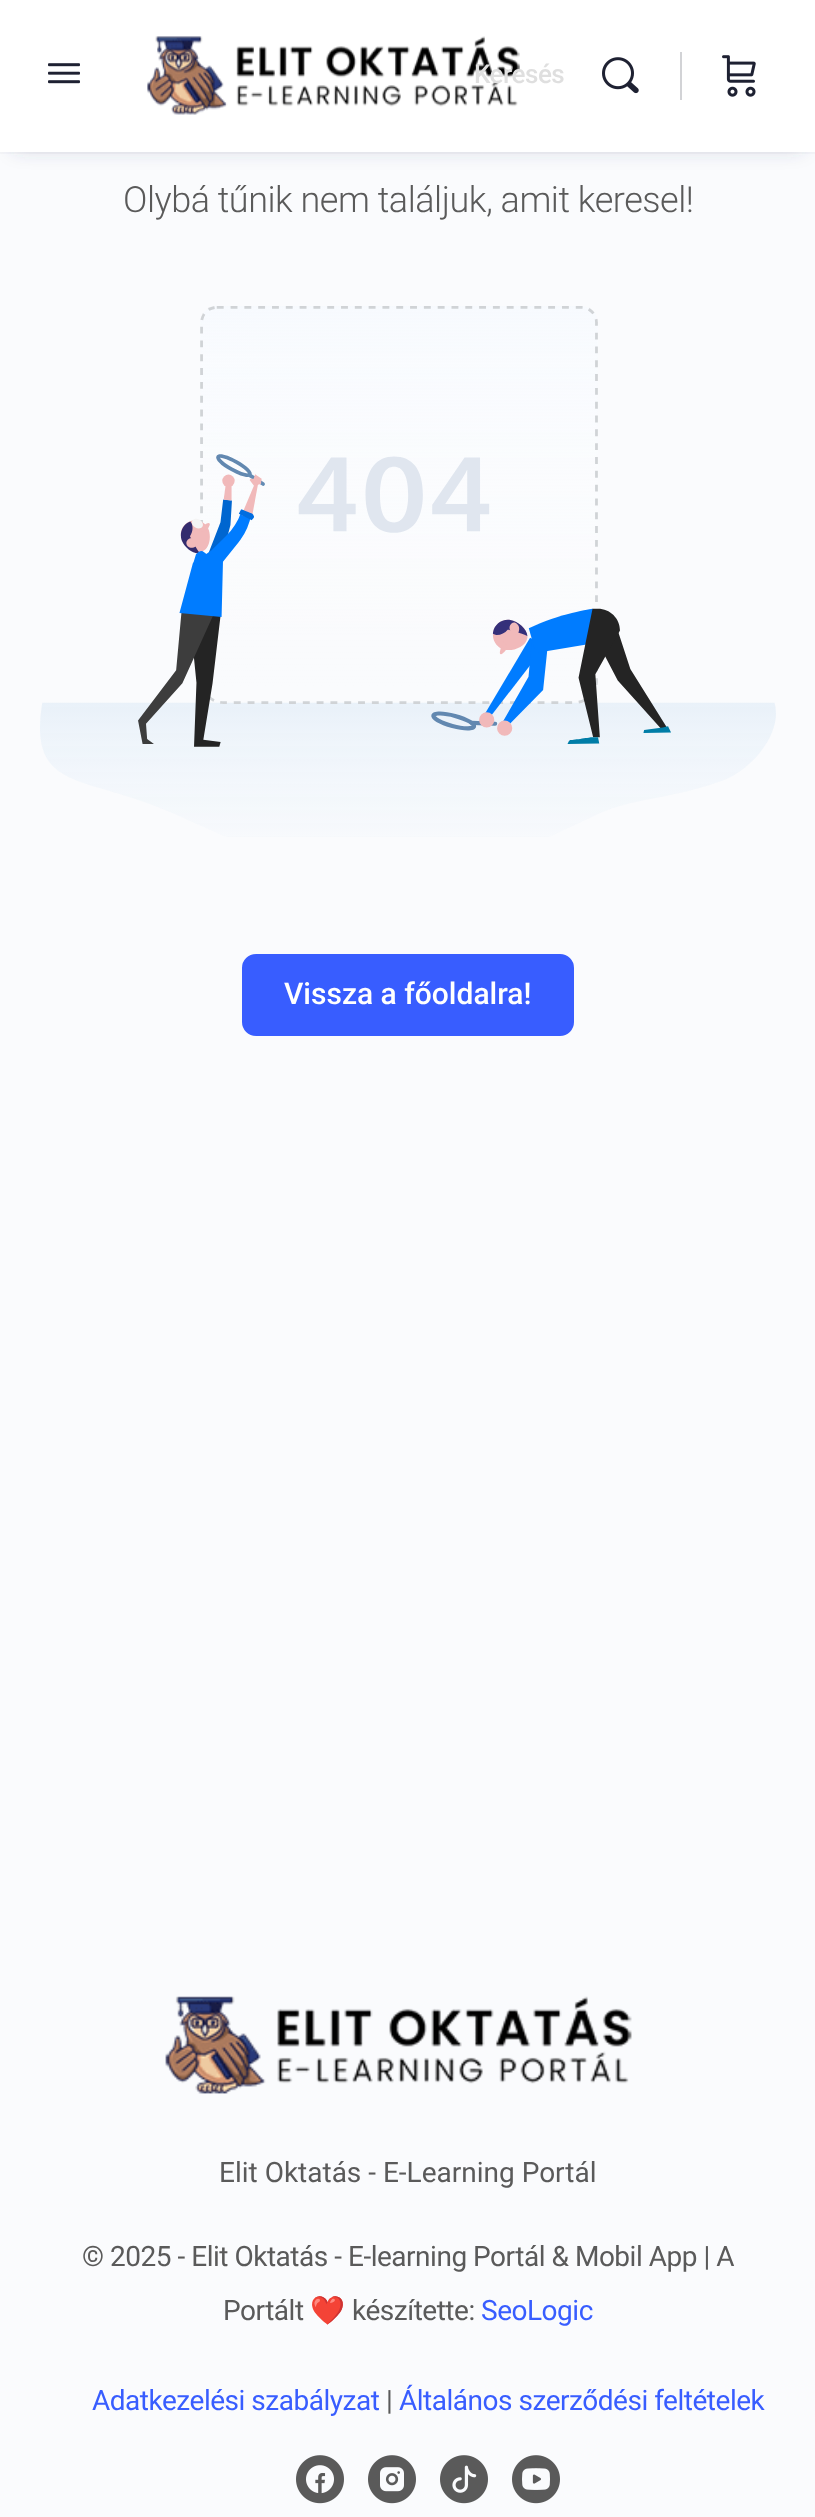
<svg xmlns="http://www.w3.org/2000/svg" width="815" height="2517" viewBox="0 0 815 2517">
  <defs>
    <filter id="blur1" x="-50%" y="-200%" width="200%" height="500%"><feGaussianBlur stdDeviation="10"/></filter>
  </defs>
  <rect width="100%" height="100%" fill="#fafbfd"/>
  <rect x="14" y="24" width="788" height="124" fill="#41476c" fill-opacity="0.25" filter="url(#blur1)"/>
  <rect x="0" y="152" width="815" height="2" fill="#8b8d9d" fill-opacity="0.05"/>
  <rect x="0" y="0" width="815" height="152" fill="#ffffff"/>
  <image x="48" y="63" width="32" height="21" href="img1.png"/>
  <image x="147" y="36" width="373" height="79" href="img2.png"/>
  <text x="474" y="83" font-family="Roboto" font-size="26" font-weight="500" letter-spacing="-0.48" fill="#dfdfdf">Keresés</text>
  <image x="602" y="57" width="37" height="37" href="img3.png"/>
  <rect x="680" y="52" width="2" height="48" fill="#d2d3d6"/>
  <image x="722" y="55" width="34" height="42" href="img4.png"/>
  <text x="123" y="212" font-family="Roboto" font-size="36" font-weight="300" letter-spacing="-0.48" fill="#5a5a5a">Olybá tűnik nem találjuk, amit keresel!</text>
  <image x="40" y="306" width="736" height="531" href="img5.png"/>
  <rect x="243" y="955" width="330" height="80" rx="13" fill="#385dff" stroke="#385dff" stroke-width="2"/>
  <text x="284" y="1004" font-family="Roboto" font-size="30" font-weight="500" fill="#ffffff">Vissza a főoldalra!</text>
  <image x="165" y="1996" width="467" height="98" href="img6.png"/>
  <text x="219" y="2182" font-family="Roboto" font-size="28" fill="#5a5a5a">Elit Oktatás - E-Learning Portál</text>
  <text x="82" y="2266" font-family="Roboto" font-size="28" letter-spacing="-0.48" fill="#5a5a5a">© 2025 - Elit Oktatás - E-learning Portál &amp; Mobil App | A</text>
  <text x="223" y="2320" font-family="Roboto" font-size="28" letter-spacing="-0.48" fill="#5a5a5a">Portált</text>
  <text x="310" y="2320" font-family="Noto Color Emoji" font-size="28" letter-spacing="-0.48" fill="#202122">❤️</text>
  <text x="352" y="2320" font-family="Roboto" font-size="28" letter-spacing="-0.48" fill="#5a5a5a">készítette:</text>
  <text x="481" y="2320" font-family="Roboto" font-size="28" letter-spacing="-0.48" fill="#385dff">SeoLogic</text>
  <text x="92" y="2410" font-family="Roboto" font-size="28" letter-spacing="-0.48" fill="#385dff">Adatkezelési szabályzat</text>
  <text x="386" y="2410" font-family="Roboto" font-size="28" letter-spacing="-0.48" fill="#5a5a5a">|</text>
  <text x="399" y="2410" font-family="Roboto" font-size="28" letter-spacing="-0.48" fill="#385dff">Általános szerződési feltételek</text>
  <image x="296" y="2455" width="48" height="49" href="img7.png"/>
  <image x="368" y="2455" width="48" height="49" href="img8.png"/>
  <image x="440" y="2455" width="48" height="49" href="img9.png"/>
  <image x="512" y="2455" width="48" height="49" href="img10.png"/>
</svg>
